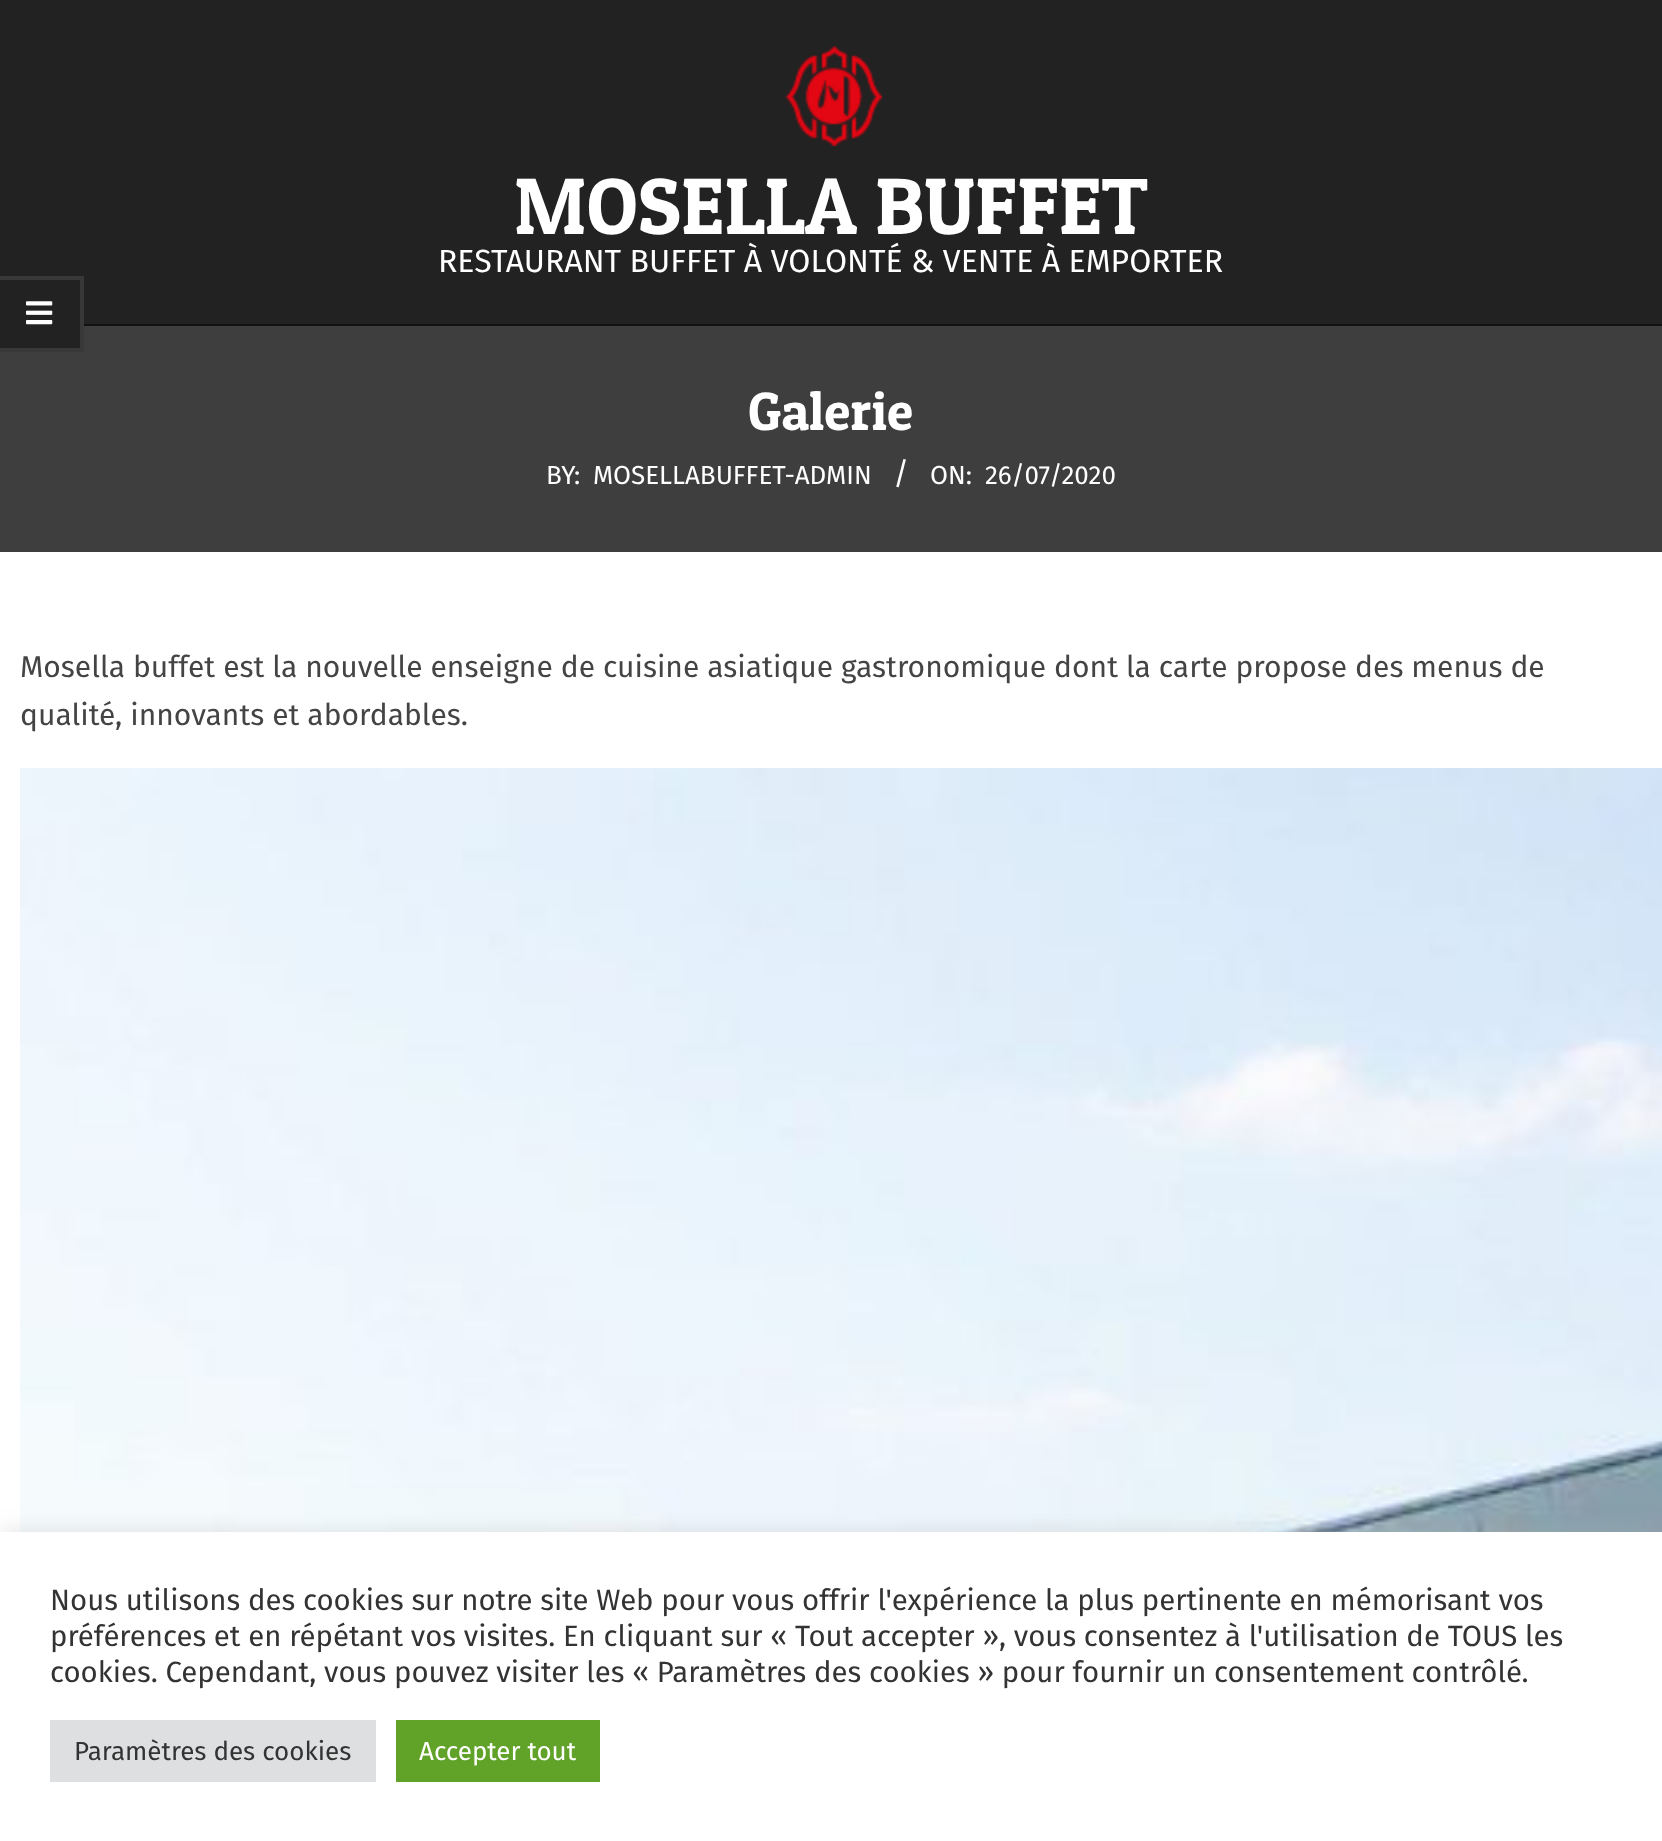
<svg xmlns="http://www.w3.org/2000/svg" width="1662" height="1841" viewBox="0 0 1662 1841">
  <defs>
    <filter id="blur1" x="-50%" y="-200%" width="200%" height="500%"><feGaussianBlur stdDeviation="10"/></filter>
  </defs>
  <rect width="100%" height="100%" fill="#222222"/>
  <image x="785" y="46" width="97" height="100" href="img1.png"/>
  <text x="514" y="234" font-family="Patua One" font-size="80" fill="#ffffff">MOSELLA BUFFET</text>
  <text x="438" y="272" font-family="Fira Sans" font-size="32" fill="#ffffff">RESTAURANT BUFFET À VOLONTÉ &amp; VENTE À EMPORTER</text>
  <rect x="0" y="326" width="1662" height="226" fill="#3e3e3e"/>
  <rect x="0" y="326" width="84" height="26" fill="#222222"/>
  <path d="M0 276H84L80 280H0Z" fill="#383838"/>
  <path d="M84 276V352L80 348V280Z" fill="#ffffff" fill-opacity="0.1"/>
  <path d="M84 352H0V348H80Z" fill="#ffffff" fill-opacity="0.1"/>
  <image x="26" y="301" width="27" height="24" href="img2.png"/>
  <rect x="84" y="324" width="1578" height="2" fill="#111111"/>
  <rect x="0" y="552" width="1662" height="980" fill="#ffffff"/>
  <text x="748" y="430" font-family="Patua One" font-size="54" fill="#ffffff">Galerie</text>
  <text x="546" y="484" font-family="Fira Sans" font-size="26" fill="#ffffff">BY:</text>
  <text x="593" y="484" font-family="Fira Sans" font-size="26" fill="#ffffff">MOSELLABUFFET-ADMIN</text>
  <text x="893" y="484" font-family="Fira Sans" font-size="31" fill="#ffffff">/</text>
  <text x="930" y="484" font-family="Fira Sans" font-size="26" fill="#ffffff">ON:</text>
  <text x="985" y="484" font-family="Fira Sans" font-size="26" fill="#ffffff">26/07/2020</text>
  <text x="20" y="677" font-family="Fira Sans" font-size="30" fill="#444444">Mosella buffet est la nouvelle enseigne de cuisine asiatique gastronomique dont la carte propose des menus de</text>
  <text x="20" y="725" font-family="Fira Sans" font-size="30" fill="#444444">qualité, innovants et abordables.</text>
  <image x="20" y="768" width="1642" height="764" href="img3.png"/>
  <rect x="0" y="1530" width="1662" height="310" fill="#acabab" fill-opacity="0.3" filter="url(#blur1)"/>
  <rect x="0" y="1532" width="1662" height="309" fill="#ffffff"/>
  <text x="50" y="1610" font-family="Fira Sans" font-size="29.33" fill="#333333">Nous utilisons des cookies sur notre site Web pour vous offrir l'expérience la plus pertinente en mémorisant vos</text>
  <text x="50" y="1646" font-family="Fira Sans" font-size="29.33" fill="#333333">préférences et en répétant vos visites. En cliquant sur « Tout accepter », vous consentez à l'utilisation de TOUS les</text>
  <text x="50" y="1682" font-family="Fira Sans" font-size="29.33" fill="#333333">cookies. Cependant, vous pouvez visiter les « Paramètres des cookies » pour fournir un consentement contrôlé.</text>
  <rect x="50" y="1720" width="326" height="62" fill="#dedfe0"/>
  <text x="74" y="1760" font-family="Fira Sans" font-size="26" fill="#333333">Paramètres des cookies</text>
  <rect x="396" y="1720" width="204" height="62" fill="#61a229"/>
  <text x="419" y="1760" font-family="Fira Sans" font-size="26" fill="#ffffff">Accepter tout</text>
</svg>
